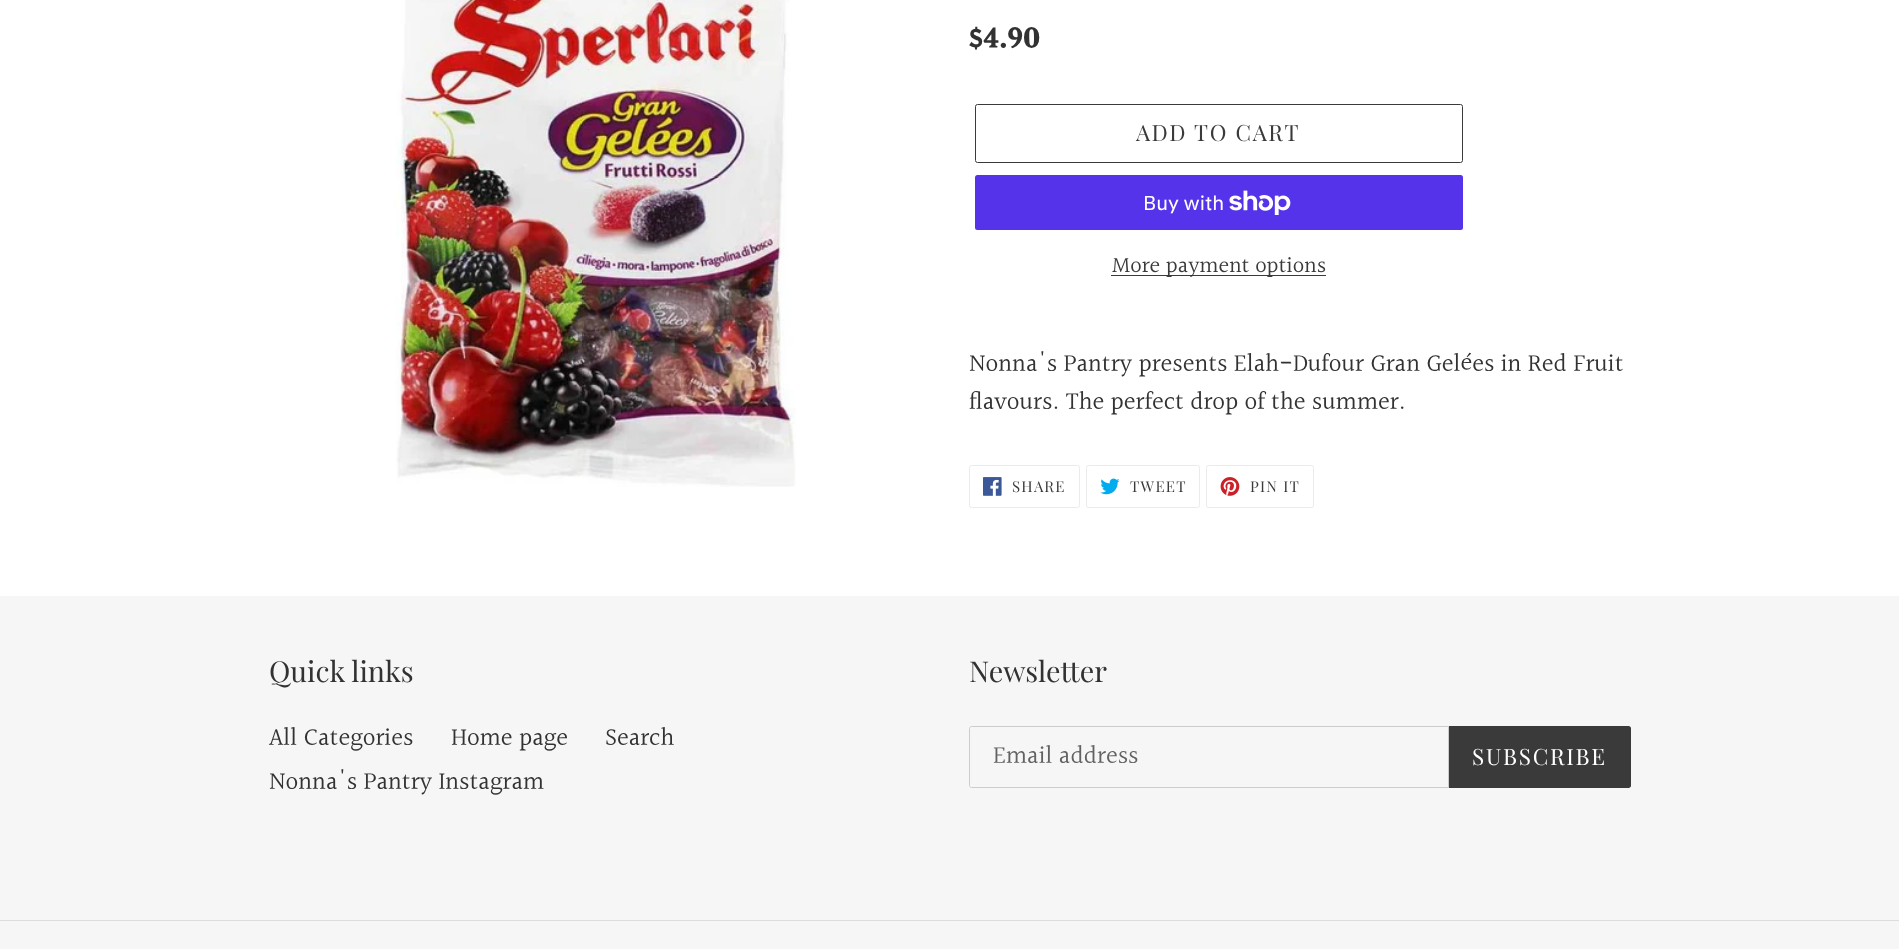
<svg xmlns="http://www.w3.org/2000/svg" width="1899" height="949" viewBox="0 0 1899 949">
  <rect width="100%" height="100%" fill="#ffffff"/>
  <image x="393" y="0" width="403" height="487" href="img1.png"/>
  <text x="969" y="49" font-family="Halant" font-size="31" font-weight="bold" fill="#333232">$4.90</text>
  <rect x="975.5" y="104.5" width="487" height="58" rx="2" fill="none" stroke="#3a3a3a"/>
  <text x="1136" y="141" font-family="Playfair Display" font-size="22.5" letter-spacing="1.75" fill="#3a3a3a">ADD TO CART</text>
  <rect x="975" y="175" width="488" height="55" rx="2.5" fill="#5433eb"/>
  <text x="1143" y="210" font-family="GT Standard" font-size="20" fill="#ffffff">Buy with</text>
  <image x="1229" y="190" width="62" height="25" href="img2.png"/>
  <rect x="1111" y="275" width="215" height="1" fill="#3a3a3a"/>
  <text x="1112" y="273" font-family="Halant" font-size="22.5" fill="#3a3a3a">More payment options</text>
  <text x="969" y="372" font-family="Halant" font-size="25" fill="#333232">Nonna's Pantry presents Elah-Dufour Gran Gelées in Red Fruit</text>
  <text x="969" y="410" font-family="Halant" font-size="25" fill="#333232">flavours. The perfect drop of the summer.</text>
  <rect x="969.5" y="465.5" width="110" height="42" rx="2" fill="none" stroke="#ebebeb"/>
  <image x="983" y="477" width="19" height="19" href="img3.png"/>
  <text x="1012" y="492" font-family="Playfair Display" font-size="15" letter-spacing="1.25" fill="#3a3a3a">SHARE</text>
  <rect x="1086.5" y="465.5" width="113" height="42" rx="2" fill="none" stroke="#ebebeb"/>
  <image x="1100" y="478" width="20" height="17" href="img4.png"/>
  <text x="1130" y="492" font-family="Playfair Display" font-size="15" letter-spacing="1.25" fill="#3a3a3a">TWEET</text>
  <rect x="1206.5" y="465.5" width="107" height="42" rx="2" fill="none" stroke="#ebebeb"/>
  <image x="1220" y="477" width="20" height="19" href="img5.png"/>
  <text x="1250" y="492" font-family="Playfair Display" font-size="15" letter-spacing="1.25" fill="#3a3a3a">PIN IT</text>
  <rect x="0" y="596" width="1899" height="353" fill="#f6f6f6"/>
  <text x="269" y="682" font-family="Playfair Display" font-size="28.75" fill="#333232">Quick links</text>
  <text x="269" y="746" font-family="Halant" font-size="25" fill="#333232">All Categories</text>
  <text x="451" y="746" font-family="Halant" font-size="25" fill="#333232">Home page</text>
  <text x="605" y="746" font-family="Halant" font-size="25" fill="#333232">Search</text>
  <text x="269" y="790" font-family="Halant" font-size="25" fill="#333232">Nonna's Pantry Instagram</text>
  <text x="969" y="682" font-family="Playfair Display" font-size="28.75" fill="#333232">Newsletter</text>
  <path d="M971.5 726.5H1448.5V787.5H971.5C970.5 787.5 969.5 786.5 969.5 785.5V728.5C969.5 727.5 970.5 726.5 971.5 726.5Z" fill="none" stroke="#cccccc"/>
  <text x="993" y="764" font-family="Halant" font-size="25" fill="#626262">Email address</text>
  <path d="M1449 726H1628.5C1630 726 1631 727 1631 728.5V785.5C1631 787 1630 788 1628.5 788H1449Z" fill="#3a3a3a"/>
  <text x="1472" y="765" font-family="Playfair Display" font-size="22.5" letter-spacing="1.75" fill="#ffffff">SUBSCRIBE</text>
  <rect x="0" y="920" width="1899" height="1" fill="#dddddd"/>
</svg>
